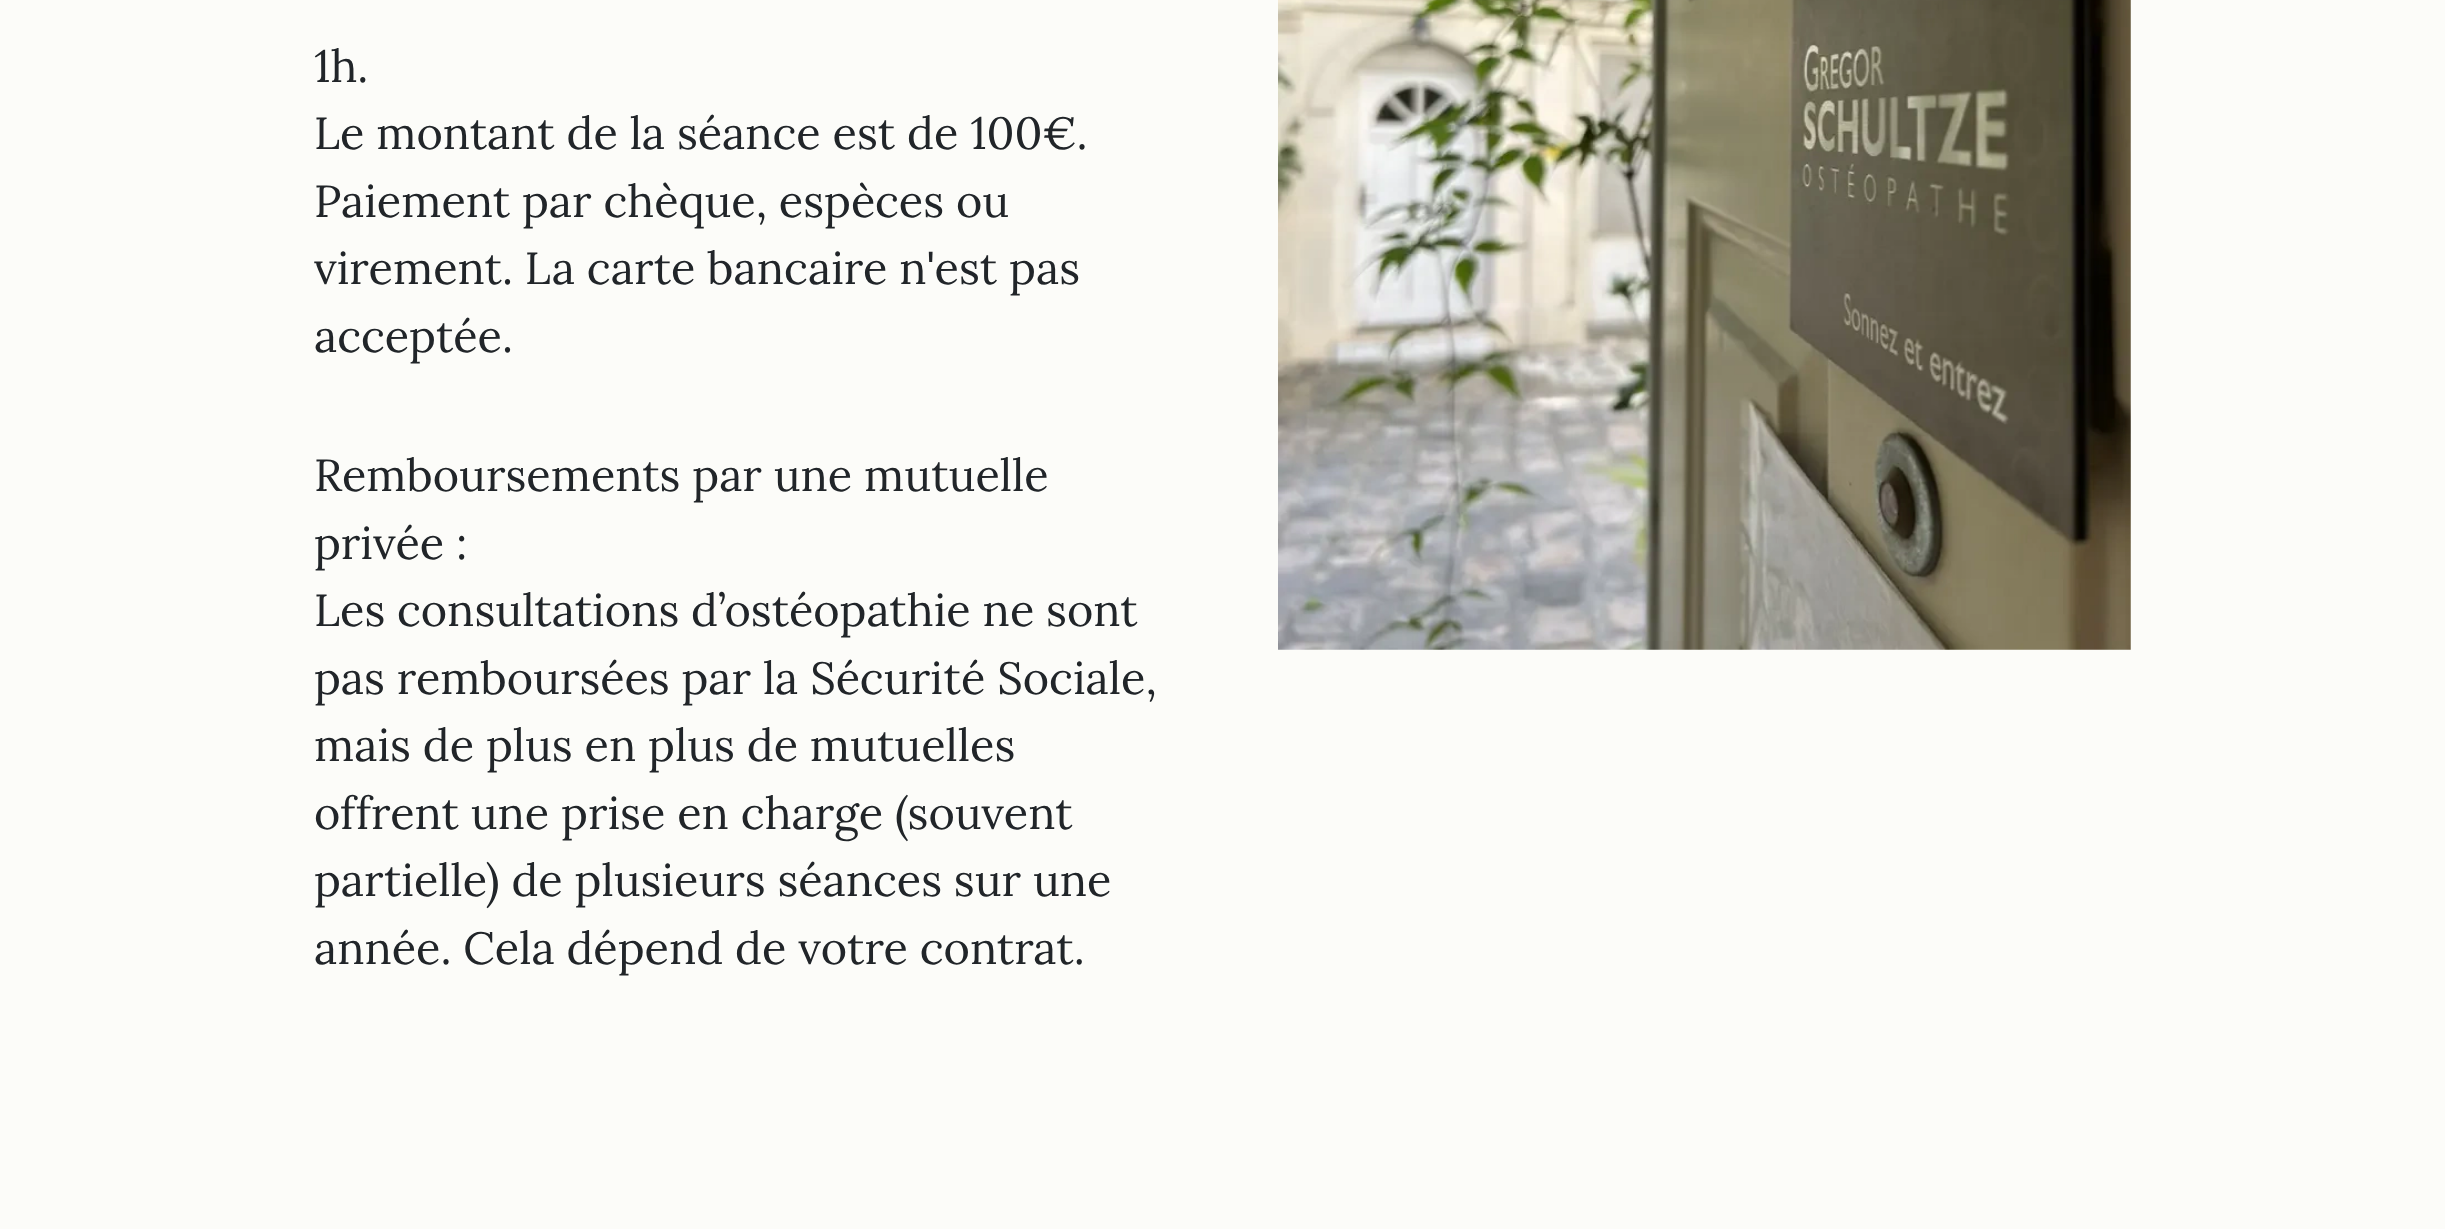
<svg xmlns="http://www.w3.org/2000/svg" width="2445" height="1229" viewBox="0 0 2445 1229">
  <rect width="100%" height="100%" fill="#fcfcf9"/>
  <text x="314" y="82" font-family="Lora" font-size="45" fill="#212529">1h.</text>
  <text x="314" y="149" font-family="Lora" font-size="45" fill="#212529">Le montant de la séance est de 100€.</text>
  <text x="314" y="217" font-family="Lora" font-size="45" fill="#212529">Paiement par chèque, espèces ou</text>
  <text x="314" y="284" font-family="Lora" font-size="45" fill="#212529">virement. La carte bancaire n'est pas</text>
  <text x="314" y="352" font-family="Lora" font-size="45" fill="#212529">acceptée.</text>
  <text x="314" y="491" font-family="Lora" font-size="45" fill="#212529">Remboursements par une mutuelle</text>
  <text x="314" y="559" font-family="Lora" font-size="45" fill="#212529">privée :</text>
  <text x="314" y="626" font-family="Lora" font-size="45" fill="#212529">Les consultations d’ostéopathie ne sont</text>
  <text x="314" y="694" font-family="Lora" font-size="45" fill="#212529">pas remboursées par la Sécurité Sociale,</text>
  <text x="314" y="761" font-family="Lora" font-size="45" fill="#212529">mais de plus en plus de mutuelles</text>
  <text x="314" y="829" font-family="Lora" font-size="45" fill="#212529">offrent une prise en charge (souvent</text>
  <text x="314" y="896" font-family="Lora" font-size="45" fill="#212529">partielle) de plusieurs séances sur une</text>
  <text x="314" y="964" font-family="Lora" font-size="45" fill="#212529">année. Cela dépend de votre contrat.</text>
  <image x="1278" y="0" width="853" height="650" href="img1.png"/>
</svg>
